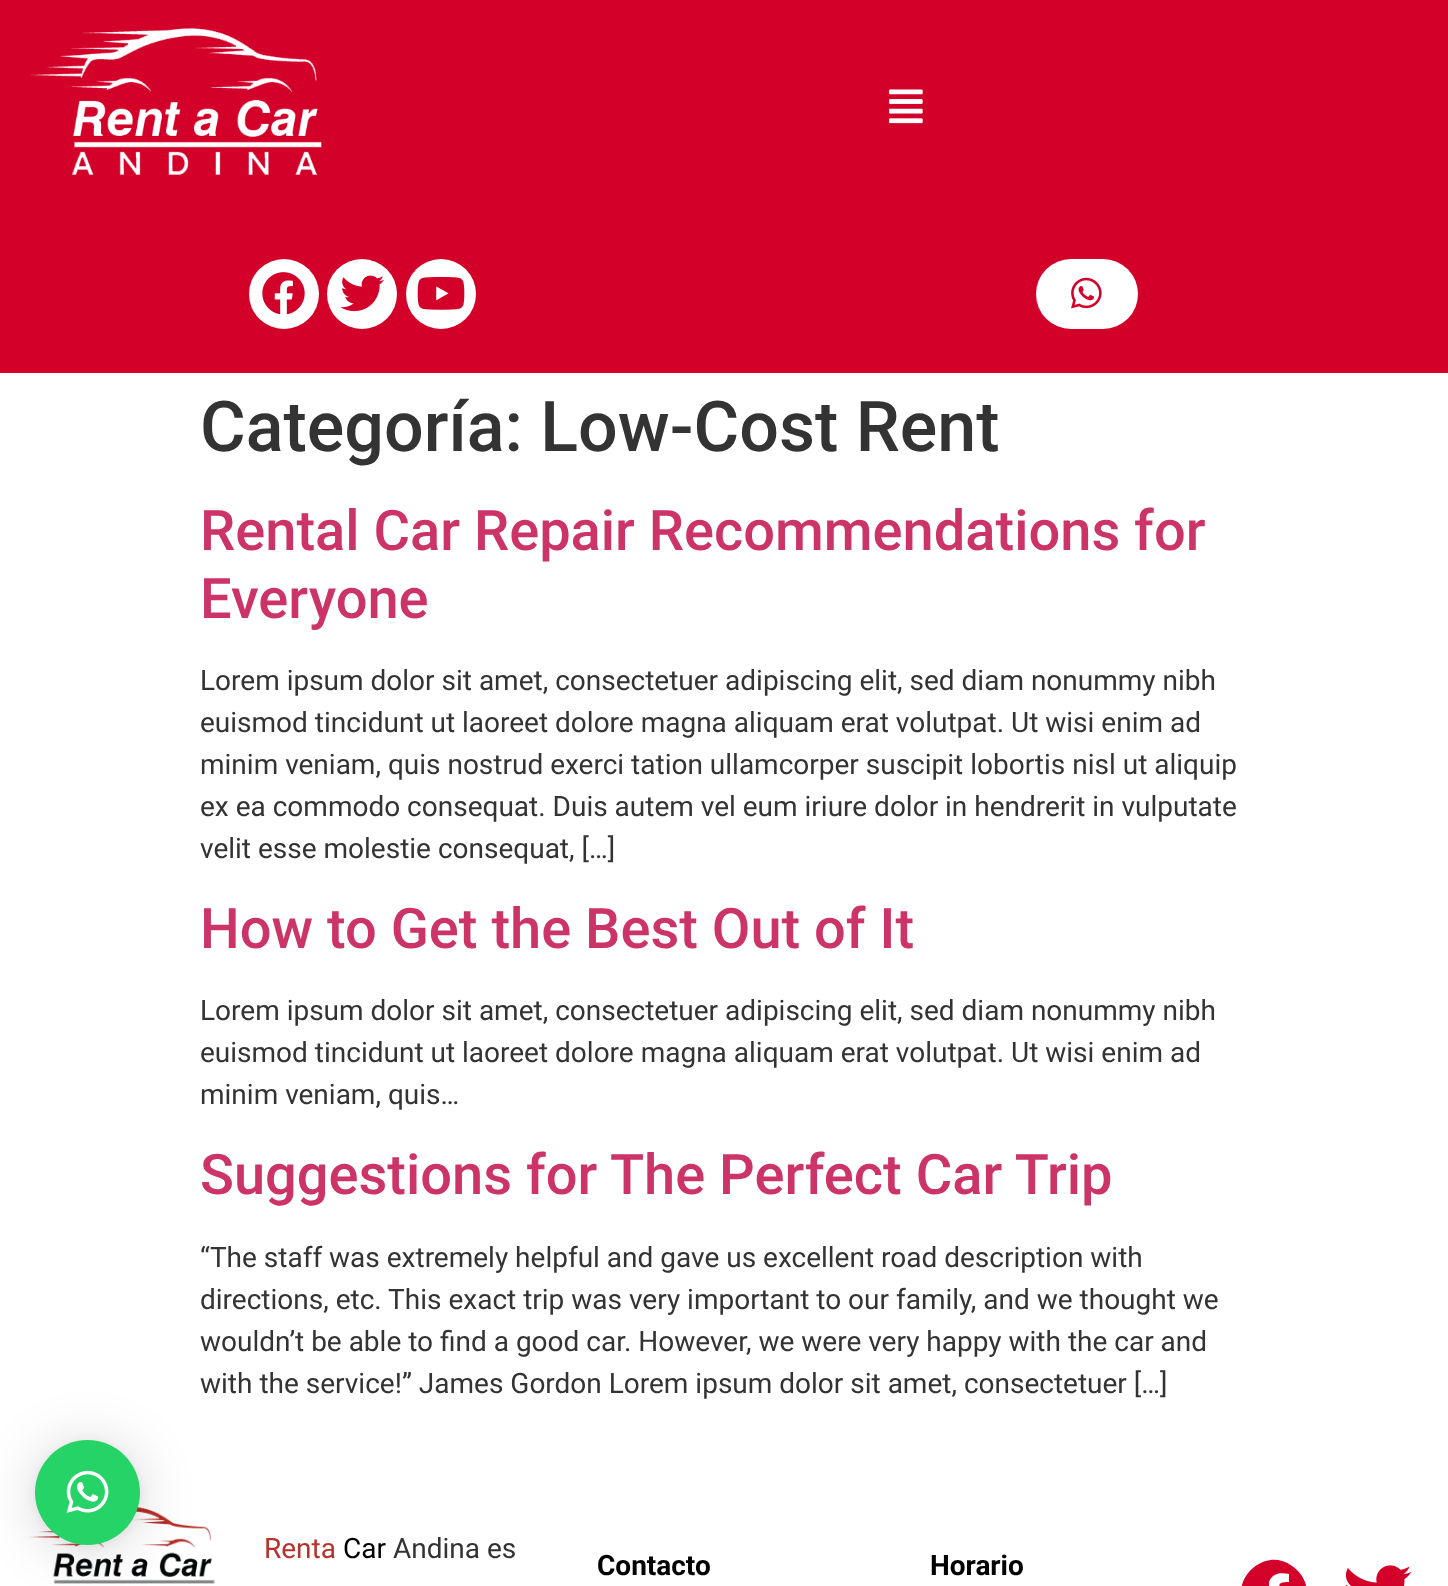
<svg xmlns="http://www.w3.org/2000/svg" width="1448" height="1586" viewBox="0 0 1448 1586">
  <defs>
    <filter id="blur1" x="-50%" y="-200%" width="200%" height="500%"><feGaussianBlur stdDeviation="28"/></filter>
    <filter id="blur2" x="-50%" y="-200%" width="200%" height="500%"><feGaussianBlur stdDeviation="5"/></filter>
  </defs>
  <rect width="100%" height="100%" fill="#ffffff"/>
  <image x="29" y="1507" width="186" height="77" href="img8.png"/>
  <rect x="35" y="1444" width="105" height="105" rx="52.5" fill="#000000" fill-opacity="0.16" filter="url(#blur1)"/>
  <rect x="35" y="1442" width="105" height="105" rx="52.5" fill="#000000" fill-opacity="0.06" filter="url(#blur2)"/>
  <circle cx="87.5" cy="1492.5" r="52.5" fill="#25d366"/>
  <image x="66" y="1470" width="43" height="43" href="img1.png"/>
  <rect x="0" y="0" width="1448" height="373" fill="#d30129"/>
  <image x="30" y="28" width="292" height="147" href="img2.png"/>
  <image x="889" y="89" width="34" height="35" href="img3.png"/>
  <circle cx="284" cy="294" r="35" fill="#ffffff"/>
  <image x="262" y="272" width="43" height="43" href="img4.png"/>
  <circle cx="362" cy="294" r="35" fill="#ffffff"/>
  <image x="340" y="275" width="44" height="37" href="img5.png"/>
  <circle cx="441" cy="294" r="35" fill="#ffffff"/>
  <image x="417" y="276" width="48" height="34" href="img6.png"/>
  <rect x="1036" y="259" width="102" height="70" rx="35" fill="#ffffff"/>
  <image x="1071" y="277" width="31" height="32" href="img7.png"/>
  <text x="200" y="451" font-family="Roboto" font-size="70" font-weight="500" fill="#333333">Categoría: Low-Cost Rent</text>
  <text x="200" y="550" font-family="Roboto" font-size="56" font-weight="500" fill="#cc3366">Rental Car Repair Recommendations for</text>
  <text x="200" y="618" font-family="Roboto" font-size="56" font-weight="500" fill="#cc3366">Everyone</text>
  <text x="200" y="690" font-family="Roboto" font-size="28" fill="#333333">Lorem ipsum dolor sit amet, consectetuer adipiscing elit, sed diam nonummy nibh</text>
  <text x="200" y="732" font-family="Roboto" font-size="28" fill="#333333">euismod tincidunt ut laoreet dolore magna aliquam erat volutpat. Ut wisi enim ad</text>
  <text x="200" y="774" font-family="Roboto" font-size="28" fill="#333333">minim veniam, quis nostrud exerci tation ullamcorper suscipit lobortis nisl ut aliquip</text>
  <text x="200" y="816" font-family="Roboto" font-size="28" fill="#333333">ex ea commodo consequat. Duis autem vel eum iriure dolor in hendrerit in vulputate</text>
  <text x="200" y="858" font-family="Roboto" font-size="28" fill="#333333">velit esse molestie consequat, […]</text>
  <text x="200" y="948" font-family="Roboto" font-size="56" font-weight="500" fill="#cc3366">How to Get the Best Out of It</text>
  <text x="200" y="1020" font-family="Roboto" font-size="28" fill="#333333">Lorem ipsum dolor sit amet, consectetuer adipiscing elit, sed diam nonummy nibh</text>
  <text x="200" y="1062" font-family="Roboto" font-size="28" fill="#333333">euismod tincidunt ut laoreet dolore magna aliquam erat volutpat. Ut wisi enim ad</text>
  <text x="200" y="1104" font-family="Roboto" font-size="28" fill="#333333">minim veniam, quis…</text>
  <text x="200" y="1194" font-family="Roboto" font-size="56" font-weight="500" fill="#cc3366">Suggestions for The Perfect Car Trip</text>
  <text x="200" y="1267" font-family="Roboto" font-size="28" fill="#333333">“The staff was extremely helpful and gave us excellent road description with</text>
  <text x="200" y="1309" font-family="Roboto" font-size="28" fill="#333333">directions, etc. This exact trip was very important to our family, and we thought we</text>
  <text x="200" y="1351" font-family="Roboto" font-size="28" fill="#333333">wouldn’t be able to find a good car. However, we were very happy with the car and</text>
  <text x="200" y="1393" font-family="Roboto" font-size="28" fill="#333333">with the service!” James Gordon Lorem ipsum dolor sit amet, consectetuer […]</text>
  <text x="264" y="1558" font-family="Roboto" font-size="28" fill="#b6322d">Renta</text>
  <text x="343" y="1558" font-family="Roboto" font-size="28" fill="#000000">Car</text>
  <text x="393" y="1558" font-family="Roboto" font-size="28" fill="#333333">Andina es</text>
  <text x="597" y="1575" font-family="Roboto" font-size="28" font-weight="bold" fill="#000000">Contacto</text>
  <text x="930" y="1575" font-family="Roboto" font-size="28" font-weight="bold" fill="#000000">Horario</text>
  <path d="M1307 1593C1307 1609 1295 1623 1279 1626V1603H1287L1288 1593H1279C1279 1584 1278 1582 1289 1582V1574C1281 1572 1272 1573 1269 1582V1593H1260V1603H1269V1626C1261 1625 1254 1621 1249 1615C1224 1586 1261 1544 1292 1566C1301 1572 1307 1582 1307 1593Z" fill="#d30129"/>
  <image x="1345" y="1565" width="67" height="21" href="img9.png"/>
</svg>
